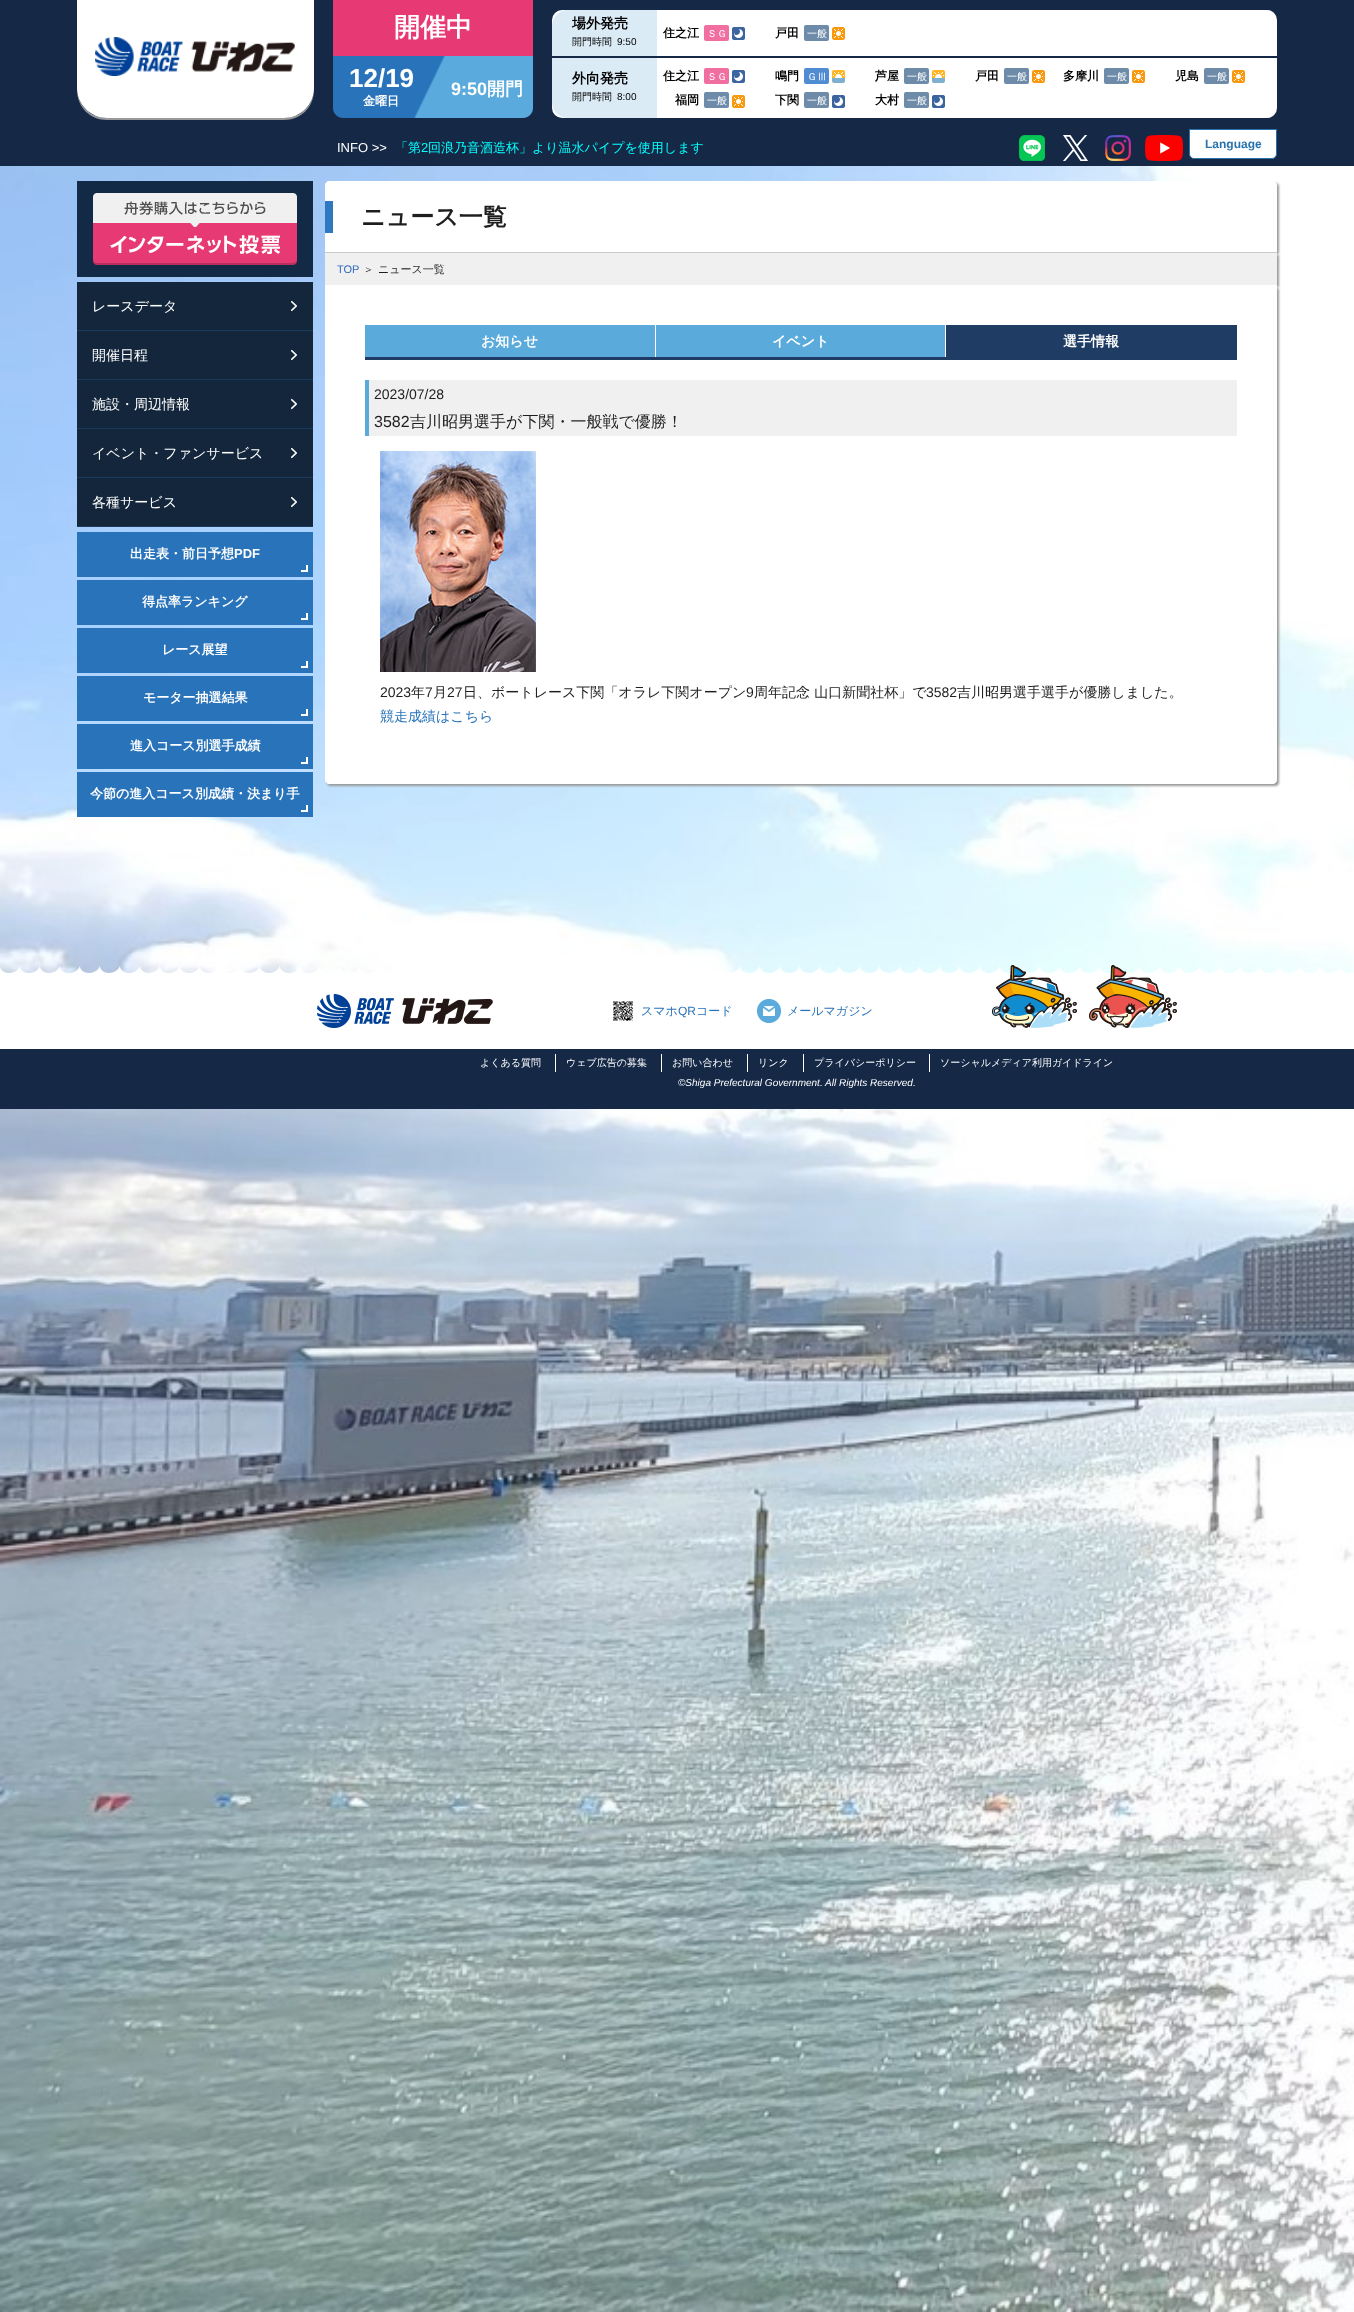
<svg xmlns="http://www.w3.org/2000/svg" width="1354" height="2312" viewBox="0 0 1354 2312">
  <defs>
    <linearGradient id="g1" gradientUnits="userSpaceOnUse" x1="526" y1="132" x2="340" y2="42"><stop offset="0" stop-color="#5aaadd"/><stop offset="0.51" stop-color="#5aaadd"/><stop offset="0.52" stop-color="#2973ba"/></linearGradient>
    <filter id="blur1" x="-50%" y="-200%" width="200%" height="500%"><feGaussianBlur stdDeviation="1"/></filter>
  </defs>
  <rect width="100%" height="100%" fill="#ffffff"/>
  <image x="0" y="166" width="1354" height="2146" href="img1.png"/>
  <rect x="0" y="0" width="1354" height="166" fill="#152846"/>
  <path d="M77 88V90C77 107 90 120 107 120H284C301 120 314 107 314 90V88C314 105 301 118 284 118H107C90 118 77 105 77 88Z" fill="#999999"/>
  <path d="M77 0H314V88C314 104.5 300.5 118 284 118H107C90.5 118 77 104.5 77 88Z" fill="#ffffff"/>
  <image x="95" y="37" width="200" height="39" href="img2.png"/>
  <rect x="333" y="0" width="200" height="56" fill="#e73973"/>
  <text x="394" y="36" font-family="WenQuanYi Zen Hei" font-size="26" font-weight="bold" fill="#ffffff">開催中</text>
  <path d="M333 56H533V108C533 113.5 528.5 118 523 118H343C337.5 118 333 113.5 333 108Z" fill="url(#g1)"/>
  <text x="349" y="87" font-family="Liberation Sans" font-size="26" font-weight="bold" fill="#ffffff">12/19</text>
  <text x="451" y="95" font-family="Liberation Sans" font-size="18" font-weight="bold" fill="#ffffff">9:50</text>
  <text x="487" y="95" font-family="WenQuanYi Zen Hei" font-size="18" font-weight="bold" fill="#ffffff">開門</text>
  <text x="363" y="105" font-family="WenQuanYi Zen Hei" font-size="12" font-weight="bold" fill="#ffffff">金曜日</text>
  <rect x="552" y="10" width="725" height="108" rx="10" fill="#ffffff"/>
  <rect x="552" y="56" width="725" height="2" fill="#152846"/>
  <path d="M568 10H657V56H552V26C552 17 559 10 568 10Z" fill="#dbebf5"/>
  <text x="572" y="28" font-family="WenQuanYi Zen Hei" font-size="14" font-weight="bold" fill="#000000">場外発売</text>
  <text x="572" y="45" font-family="WenQuanYi Zen Hei" font-size="10" font-weight="500" fill="#000000">開門時間</text>
  <text x="617" y="45" font-family="Liberation Sans" font-size="10" fill="#000000">9:50</text>
  <text x="663" y="37" font-family="WenQuanYi Zen Hei" font-size="12" font-weight="bold" fill="#000000">住之江</text>
  <rect x="704" y="25" width="25" height="16" rx="2" fill="#f06ea0"/>
  <text x="707" y="37" font-family="WenQuanYi Zen Hei" font-size="10" font-weight="500" fill="#ffffff">ＳＧ</text>
  <image x="732" y="27" width="13" height="13" href="img3.png"/>
  <text x="775" y="37" font-family="WenQuanYi Zen Hei" font-size="12" font-weight="bold" fill="#000000">戸田</text>
  <rect x="804" y="25" width="25" height="16" rx="2" fill="#6e8caa"/>
  <text x="807" y="37" font-family="WenQuanYi Zen Hei" font-size="10" font-weight="500" fill="#ffffff">一般</text>
  <image x="832" y="27" width="13" height="13" href="img4.png"/>
  <path d="M552 58H657V118H568C559 118 552 111 552 102Z" fill="#dbebf5"/>
  <text x="572" y="83" font-family="WenQuanYi Zen Hei" font-size="14" font-weight="bold" fill="#000000">外向発売</text>
  <text x="572" y="100" font-family="WenQuanYi Zen Hei" font-size="10" font-weight="500" fill="#000000">開門時間</text>
  <text x="617" y="100" font-family="Liberation Sans" font-size="10" fill="#000000">8:00</text>
  <text x="663" y="80" font-family="WenQuanYi Zen Hei" font-size="12" font-weight="bold" fill="#000000">住之江</text>
  <rect x="704" y="68" width="25" height="16" rx="2" fill="#f06ea0"/>
  <text x="707" y="80" font-family="WenQuanYi Zen Hei" font-size="10" font-weight="500" fill="#ffffff">ＳＧ</text>
  <image x="732" y="70" width="13" height="13" href="img3.png"/>
  <text x="775" y="80" font-family="WenQuanYi Zen Hei" font-size="12" font-weight="bold" fill="#000000">鳴門</text>
  <rect x="804" y="68" width="25" height="16" rx="2" fill="#508cd2"/>
  <text x="807" y="80" font-family="WenQuanYi Zen Hei" font-size="10" font-weight="500" fill="#ffffff">ＧⅢ</text>
  <image x="832" y="70" width="13" height="13" href="img5.png"/>
  <text x="875" y="80" font-family="WenQuanYi Zen Hei" font-size="12" font-weight="bold" fill="#000000">芦屋</text>
  <rect x="904" y="68" width="25" height="16" rx="2" fill="#6e8caa"/>
  <text x="907" y="80" font-family="WenQuanYi Zen Hei" font-size="10" font-weight="500" fill="#ffffff">一般</text>
  <image x="932" y="70" width="13" height="13" href="img5.png"/>
  <text x="975" y="80" font-family="WenQuanYi Zen Hei" font-size="12" font-weight="bold" fill="#000000">戸田</text>
  <rect x="1004" y="68" width="25" height="16" rx="2" fill="#6e8caa"/>
  <text x="1007" y="80" font-family="WenQuanYi Zen Hei" font-size="10" font-weight="500" fill="#ffffff">一般</text>
  <image x="1032" y="70" width="13" height="13" href="img4.png"/>
  <text x="1063" y="80" font-family="WenQuanYi Zen Hei" font-size="12" font-weight="bold" fill="#000000">多摩川</text>
  <rect x="1104" y="68" width="25" height="16" rx="2" fill="#6e8caa"/>
  <text x="1107" y="80" font-family="WenQuanYi Zen Hei" font-size="10" font-weight="500" fill="#ffffff">一般</text>
  <image x="1132" y="70" width="13" height="13" href="img4.png"/>
  <text x="1175" y="80" font-family="WenQuanYi Zen Hei" font-size="12" font-weight="bold" fill="#000000">児島</text>
  <rect x="1204" y="68" width="25" height="16" rx="2" fill="#6e8caa"/>
  <text x="1207" y="80" font-family="WenQuanYi Zen Hei" font-size="10" font-weight="500" fill="#ffffff">一般</text>
  <image x="1232" y="70" width="13" height="13" href="img4.png"/>
  <text x="675" y="104" font-family="WenQuanYi Zen Hei" font-size="12" font-weight="bold" fill="#000000">福岡</text>
  <rect x="704" y="92" width="25" height="16" rx="2" fill="#6e8caa"/>
  <text x="707" y="104" font-family="WenQuanYi Zen Hei" font-size="10" font-weight="500" fill="#ffffff">一般</text>
  <image x="732" y="95" width="13" height="13" href="img4.png"/>
  <text x="775" y="104" font-family="WenQuanYi Zen Hei" font-size="12" font-weight="bold" fill="#000000">下関</text>
  <rect x="804" y="92" width="25" height="16" rx="2" fill="#6e8caa"/>
  <text x="807" y="104" font-family="WenQuanYi Zen Hei" font-size="10" font-weight="500" fill="#ffffff">一般</text>
  <image x="832" y="95" width="13" height="13" href="img3.png"/>
  <text x="875" y="104" font-family="WenQuanYi Zen Hei" font-size="12" font-weight="bold" fill="#000000">大村</text>
  <rect x="904" y="92" width="25" height="16" rx="2" fill="#6e8caa"/>
  <text x="907" y="104" font-family="WenQuanYi Zen Hei" font-size="10" font-weight="500" fill="#ffffff">一般</text>
  <image x="932" y="95" width="13" height="13" href="img3.png"/>
  <rect x="77" y="181" width="236" height="96" fill="#122a46"/>
  <image x="93" y="193" width="204" height="72" href="img6.png"/>
  <rect x="77" y="330" width="236" height="1" fill="#1a3b5c"/>
  <rect x="77" y="282" width="236" height="48" fill="#14263c"/>
  <image x="291" y="301" width="6" height="10" href="img7.png"/>
  <text x="92" y="311" font-family="WenQuanYi Zen Hei" font-size="14" font-weight="500" fill="#ffffff">レースデータ</text>
  <rect x="77" y="379" width="236" height="1" fill="#1a3b5c"/>
  <rect x="77" y="331" width="236" height="48" fill="#14263c"/>
  <image x="291" y="350" width="6" height="10" href="img7.png"/>
  <text x="92" y="360" font-family="WenQuanYi Zen Hei" font-size="14" font-weight="500" fill="#ffffff">開催日程</text>
  <rect x="77" y="428" width="236" height="1" fill="#1a3b5c"/>
  <rect x="77" y="380" width="236" height="48" fill="#14263c"/>
  <image x="291" y="399" width="6" height="10" href="img7.png"/>
  <text x="92" y="409" font-family="WenQuanYi Zen Hei" font-size="14" font-weight="500" fill="#ffffff">施設・周辺情報</text>
  <rect x="77" y="477" width="236" height="1" fill="#1a3b5c"/>
  <rect x="77" y="429" width="236" height="48" fill="#14263c"/>
  <image x="291" y="448" width="6" height="10" href="img7.png"/>
  <text x="92" y="458" font-family="WenQuanYi Zen Hei" font-size="14" font-weight="500" fill="#ffffff">イベント・ファンサービス</text>
  <rect x="77" y="526" width="236" height="1" fill="#1a3b5c"/>
  <rect x="77" y="478" width="236" height="48" fill="#14263c"/>
  <image x="291" y="497" width="6" height="10" href="img7.png"/>
  <text x="92" y="507" font-family="WenQuanYi Zen Hei" font-size="14" font-weight="500" fill="#ffffff">各種サービス</text>
  <rect x="77" y="532" width="236" height="45" fill="#2873b9"/>
  <text x="130" y="558" font-family="WenQuanYi Zen Hei" font-size="13" font-weight="bold" fill="#ffffff">出走表・前日予想</text>
  <text x="234" y="558" font-family="Liberation Sans" font-size="13" font-weight="bold" fill="#ffffff">PDF</text>
  <rect x="306" y="565" width="2" height="7" fill="#ffffff"/>
  <rect x="301" y="570" width="7" height="2" fill="#ffffff"/>
  <rect x="77" y="580" width="236" height="45" fill="#2873b9"/>
  <text x="142" y="606" font-family="WenQuanYi Zen Hei" font-size="13" font-weight="bold" fill="#ffffff">得点率ランキング</text>
  <rect x="306" y="613" width="2" height="7" fill="#ffffff"/>
  <rect x="301" y="618" width="7" height="2" fill="#ffffff"/>
  <rect x="77" y="628" width="236" height="45" fill="#2873b9"/>
  <text x="162" y="654" font-family="WenQuanYi Zen Hei" font-size="13" font-weight="bold" fill="#ffffff">レース展望</text>
  <rect x="306" y="661" width="2" height="7" fill="#ffffff"/>
  <rect x="301" y="666" width="7" height="2" fill="#ffffff"/>
  <rect x="77" y="676" width="236" height="45" fill="#2873b9"/>
  <text x="143" y="702" font-family="WenQuanYi Zen Hei" font-size="13" font-weight="bold" fill="#ffffff">モーター抽選結果</text>
  <rect x="306" y="709" width="2" height="7" fill="#ffffff"/>
  <rect x="301" y="714" width="7" height="2" fill="#ffffff"/>
  <rect x="77" y="724" width="236" height="45" fill="#2873b9"/>
  <text x="130" y="750" font-family="WenQuanYi Zen Hei" font-size="13" font-weight="bold" fill="#ffffff">進入コース別選手成績</text>
  <rect x="306" y="757" width="2" height="7" fill="#ffffff"/>
  <rect x="301" y="762" width="7" height="2" fill="#ffffff"/>
  <rect x="77" y="772" width="236" height="45" fill="#2873b9"/>
  <text x="90" y="798" font-family="WenQuanYi Zen Hei" font-size="13" font-weight="bold" fill="#ffffff">今節の進入コース別成績・決まり手</text>
  <rect x="306" y="805" width="2" height="7" fill="#ffffff"/>
  <rect x="301" y="810" width="7" height="2" fill="#ffffff"/>
  <text x="337" y="152" font-family="Liberation Sans" font-size="13" fill="#ffffff">INFO &gt;&gt;</text>
  <text x="395" y="152" font-family="WenQuanYi Zen Hei" font-size="13" font-weight="500" fill="#04ffff">「第</text>
  <text x="421" y="152" font-family="Liberation Sans" font-size="13" fill="#04ffff">2</text>
  <text x="428" y="152" font-family="WenQuanYi Zen Hei" font-size="13" font-weight="500" fill="#04ffff">回浪乃音酒造杯」より温水パイプを使用します</text>
  <image x="1019" y="135" width="26" height="26" href="img8.png"/>
  <image x="1063" y="135" width="25" height="26" href="img9.png"/>
  <image x="1105" y="135" width="26" height="26" href="img10.png"/>
  <image x="1145" y="135" width="38" height="26" href="img11.png"/>
  <path d="M1189.5 129.5H1276.5V154C1276.5 156.5 1274.5 158.5 1272 158.5H1194C1191.5 158.5 1189.5 156.5 1189.5 154Z" fill="#ffffff" stroke="#2873ad"/>
  <text x="1205" y="148" font-family="Liberation Sans" font-size="12" font-weight="bold" fill="#2873ad">Language</text>
  <rect x="327" y="183" width="952" height="72" rx="4" fill="#999999" filter="url(#blur1)"/>
  <path d="M329 181H1273C1275 181 1277 183 1277 185V253H325V185C325 183 327 181 329 181Z" fill="#ffffff"/>
  <rect x="325" y="252" width="952" height="1" fill="#cacaca"/>
  <rect x="325" y="201" width="8" height="32" fill="#2e78c1"/>
  <text x="361" y="225" font-family="WenQuanYi Zen Hei" font-size="24" font-weight="bold" fill="#1e1e1e">ニュース一覧</text>
  <rect x="327" y="255" width="952" height="32" fill="#999999" filter="url(#blur1)"/>
  <rect x="325" y="253" width="952" height="32" fill="#f0f0f0"/>
  <text x="337" y="273" font-family="Liberation Sans" font-size="11" fill="#306abe">TOP</text>
  <text x="363" y="273" font-family="WenQuanYi Zen Hei" font-size="11" font-weight="500" fill="#1e1e1e">＞</text>
  <text x="378" y="273" font-family="WenQuanYi Zen Hei" font-size="11" font-weight="500" fill="#1e1e1e">ニュース一覧</text>
  <rect x="327" y="287" width="952" height="499" rx="4" fill="#999999" filter="url(#blur1)"/>
  <path d="M325 285H1277V780C1277 782 1275 784 1273 784H329C327 784 325 782 325 780Z" fill="#ffffff"/>
  <rect x="365" y="357" width="872" height="3" fill="#1f3c64"/>
  <rect x="365" y="325" width="290" height="32" fill="#5aaadb"/>
  <text x="481" y="346" font-family="WenQuanYi Zen Hei" font-size="14" font-weight="bold" fill="#ffffff">お知らせ</text>
  <rect x="656" y="325" width="289" height="32" fill="#5aaadb"/>
  <text x="772" y="346" font-family="WenQuanYi Zen Hei" font-size="14" font-weight="bold" fill="#ffffff">イベント</text>
  <rect x="1235" y="325" width="2" height="32" fill="#1f3c64"/>
  <rect x="946" y="325" width="289" height="32" fill="#1e3c64"/>
  <text x="1063" y="346" font-family="WenQuanYi Zen Hei" font-size="14" font-weight="bold" fill="#ffffff">選手情報</text>
  <rect x="369" y="380" width="868" height="56" fill="#f0f0f0"/>
  <rect x="365" y="380" width="4" height="56" fill="#5aaadc"/>
  <text x="374" y="399" font-family="Liberation Sans" font-size="14" fill="#1e1e1e">2023/07/28</text>
  <text x="374" y="427" font-family="Liberation Sans" font-size="16" fill="#1e1e1e">3582</text>
  <text x="410" y="427" font-family="WenQuanYi Zen Hei" font-size="16" font-weight="500" fill="#1e1e1e">吉川昭男選手が下関・一般戦で優勝！</text>
  <image x="380" y="451" width="156" height="221" href="img12.png"/>
  <text x="380" y="697" font-family="Liberation Sans" font-size="14" fill="#1e1e1e">2023</text>
  <text x="411" y="697" font-family="WenQuanYi Zen Hei" font-size="14" font-weight="500" fill="#1e1e1e">年</text>
  <text x="425" y="697" font-family="Liberation Sans" font-size="14" fill="#1e1e1e">7</text>
  <text x="433" y="697" font-family="WenQuanYi Zen Hei" font-size="14" font-weight="500" fill="#1e1e1e">月</text>
  <text x="447" y="697" font-family="Liberation Sans" font-size="14" fill="#1e1e1e">27</text>
  <text x="463" y="697" font-family="WenQuanYi Zen Hei" font-size="14" font-weight="500" fill="#1e1e1e">日、ボートレース下関「オラレ下関オープン</text>
  <text x="746" y="697" font-family="Liberation Sans" font-size="14" fill="#1e1e1e">9</text>
  <text x="754" y="697" font-family="WenQuanYi Zen Hei" font-size="14" font-weight="500" fill="#1e1e1e">周年記念 山口新聞社杯」で</text>
  <text x="926" y="697" font-family="Liberation Sans" font-size="14" fill="#1e1e1e">3582</text>
  <text x="957" y="697" font-family="WenQuanYi Zen Hei" font-size="14" font-weight="500" fill="#1e1e1e">吉川昭男選手選手が優勝しました。</text>
  <text x="380" y="721" font-family="WenQuanYi Zen Hei" font-size="14" font-weight="500" fill="#2873b9">競走成績はこちら</text>
  <image x="0" y="966" width="1354" height="7" href="img13.png"/>
  <rect x="0" y="973" width="1354" height="76" fill="#ffffff"/>
  <image x="317" y="994" width="176" height="34" href="img14.png"/>
  <image x="613" y="1001" width="20" height="20" href="img15.png"/>
  <text x="641" y="1015" font-family="WenQuanYi Zen Hei" font-size="12" font-weight="500" fill="#2873b9">スマホ</text>
  <text x="678" y="1015" font-family="Liberation Sans" font-size="12" fill="#2873b9">QR</text>
  <text x="696" y="1015" font-family="WenQuanYi Zen Hei" font-size="12" font-weight="500" fill="#2873b9">コード</text>
  <image x="757" y="999" width="24" height="24" href="img16.png"/>
  <text x="787" y="1015" font-family="WenQuanYi Zen Hei" font-size="12" font-weight="500" fill="#2873b9">メールマガジン</text>
  <image x="992" y="965" width="85" height="63" href="img17.png"/>
  <image x="1089" y="965" width="88" height="63" href="img18.png"/>
  <rect x="0" y="1049" width="1354" height="60" fill="#152846"/>
  <text x="480" y="1066" font-family="WenQuanYi Zen Hei" font-size="10" font-weight="500" fill="#ffffff">よくある質問</text>
  <rect x="555" y="1054" width="1" height="18" fill="#ffffff"/>
  <text x="566" y="1066" font-family="WenQuanYi Zen Hei" font-size="10" font-weight="500" fill="#ffffff">ウェブ広告の募集</text>
  <rect x="661" y="1054" width="1" height="18" fill="#ffffff"/>
  <text x="672" y="1066" font-family="WenQuanYi Zen Hei" font-size="10" font-weight="500" fill="#ffffff">お問い合わせ</text>
  <rect x="747" y="1054" width="1" height="18" fill="#ffffff"/>
  <text x="758" y="1066" font-family="WenQuanYi Zen Hei" font-size="10" font-weight="500" fill="#ffffff">リンク</text>
  <rect x="803" y="1054" width="1" height="18" fill="#ffffff"/>
  <text x="814" y="1066" font-family="WenQuanYi Zen Hei" font-size="10" font-weight="500" fill="#ffffff">プライバシーポリシー</text>
  <rect x="929" y="1054" width="1" height="18" fill="#ffffff"/>
  <text x="940" y="1066" font-family="WenQuanYi Zen Hei" font-size="10" font-weight="500" fill="#ffffff">ソーシャルメディア利用ガイドライン</text>
  <text x="678" y="1086" font-family="Liberation Sans" font-size="10" font-style="italic" fill="#ffffff">©Shiga Prefectural Government. All Rights Reserved.</text>
</svg>
